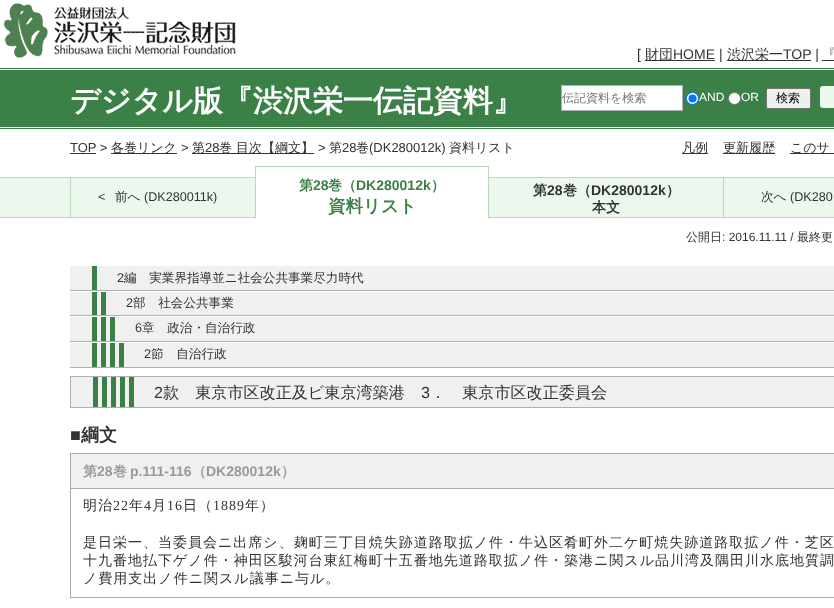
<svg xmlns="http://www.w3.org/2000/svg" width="834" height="608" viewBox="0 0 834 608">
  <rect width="100%" height="100%" fill="#ffffff"/>
  <image x="3" y="3" width="233" height="55" href="img1.png"/>
  <text x="637" y="59" font-family="Liberation Sans" font-size="14" fill="#333333">[</text>
  <rect x="645" y="60" width="70" height="1" fill="#333333"/>
  <text x="645" y="59" font-family="WenQuanYi Zen Hei" font-size="14" font-weight="500" fill="#333333">財団</text>
  <text x="673" y="59" font-family="Liberation Sans" font-size="14" fill="#333333">HOME |</text>
  <rect x="727" y="60" width="84" height="1" fill="#333333"/>
  <text x="727" y="59" font-family="WenQuanYi Zen Hei" font-size="14" font-weight="500" fill="#333333">渋沢栄一</text>
  <text x="783" y="59" font-family="Liberation Sans" font-size="14" fill="#333333">TOP |</text>
  <text x="822" y="59" font-family="WenQuanYi Zen Hei" font-size="14" font-weight="500" fill="#333333">『</text>
  <rect x="822" y="60" width="12" height="1" fill="#333333"/>
  <rect x="0" y="68" width="834" height="61" fill="#3b8047"/>
  <rect x="0" y="69" width="834" height="1" fill="#ffffff"/>
  <text x="70" y="111" font-family="WenQuanYi Zen Hei" font-size="30" font-weight="bold" fill="#ffffff">デジタル版『渋沢栄一伝記資料』</text>
  <rect x="561.5" y="85.5" width="121" height="25" fill="#ffffff" stroke="#b0b0b0"/>
  <text x="562" y="102" font-family="WenQuanYi Zen Hei" font-size="12" font-weight="500" fill="#757575">伝記資料を検索</text>
  <circle cx="692.5" cy="98.5" r="6" fill="#ffffff" stroke="#0075ff"/>
  <circle cx="692.5" cy="98.5" r="4" fill="#0075ff"/>
  <text x="699" y="101" font-family="Liberation Sans" font-size="12" fill="#ffffff">AND</text>
  <circle cx="734.5" cy="98.5" r="6" fill="#ffffff" stroke="#767676"/>
  <text x="741" y="101" font-family="Liberation Sans" font-size="12" fill="#ffffff">OR</text>
  <rect x="766.5" y="88.5" width="44" height="20" rx="1.5" fill="#efefef" stroke="#767676"/>
  <text x="776" y="102" font-family="WenQuanYi Zen Hei" font-size="12" font-weight="500" fill="#000000">検索</text>
  <rect x="820" y="86" width="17" height="22" rx="3" fill="#ecf8ee"/>
  <rect x="0" y="127" width="834" height="1" fill="#ffffff"/>
  <text x="70" y="152" font-family="Liberation Sans" font-size="13" fill="#333333">TOP &gt;</text>
  <rect x="70" y="153" width="26" height="1" fill="#333333"/>
  <rect x="111" y="153" width="66" height="1" fill="#333333"/>
  <text x="111" y="152" font-family="WenQuanYi Zen Hei" font-size="13" font-weight="500" fill="#333333">各巻リンク</text>
  <text x="181" y="152" font-family="Liberation Sans" font-size="13" fill="#333333">&gt;</text>
  <rect x="192" y="153" width="122" height="1" fill="#333333"/>
  <text x="192" y="152" font-family="WenQuanYi Zen Hei" font-size="13" font-weight="500" fill="#333333">第</text>
  <text x="205" y="152" font-family="Liberation Sans" font-size="13" fill="#333333">28</text>
  <text x="219" y="152" font-family="WenQuanYi Zen Hei" font-size="13" font-weight="500" fill="#333333">巻 目次【綱文】</text>
  <text x="318" y="152" font-family="Liberation Sans" font-size="13" fill="#333333">&gt;</text>
  <text x="329" y="152" font-family="WenQuanYi Zen Hei" font-size="13" font-weight="500" fill="#333333">第</text>
  <text x="342" y="152" font-family="Liberation Sans" font-size="13" fill="#333333">28</text>
  <text x="356" y="152" font-family="WenQuanYi Zen Hei" font-size="13" font-weight="500" fill="#333333">巻</text>
  <text x="369" y="152" font-family="Liberation Sans" font-size="13" fill="#333333">(DK280012k)</text>
  <text x="449" y="152" font-family="WenQuanYi Zen Hei" font-size="13" font-weight="500" fill="#333333">資料リスト</text>
  <rect x="682" y="153" width="26" height="1" fill="#333333"/>
  <text x="682" y="152" font-family="WenQuanYi Zen Hei" font-size="13" font-weight="500" fill="#333333">凡例</text>
  <rect x="723" y="153" width="52" height="1" fill="#333333"/>
  <text x="723" y="152" font-family="WenQuanYi Zen Hei" font-size="13" font-weight="500" fill="#333333">更新履歴</text>
  <rect x="790" y="153" width="44" height="1" fill="#333333"/>
  <text x="790" y="152" font-family="WenQuanYi Zen Hei" font-size="13" font-weight="500" fill="#333333">このサ</text>
  <rect x="0" y="178" width="834" height="39" fill="#ecf8ee"/>
  <rect x="0" y="177" width="834" height="1" fill="#b6d9b9"/>
  <rect x="0" y="217" width="834" height="1" fill="#b6d9b9"/>
  <rect x="70" y="178" width="1" height="40" fill="#b6d9b9"/>
  <text x="98" y="201" font-family="Liberation Sans" font-size="12.6" fill="#333333">&lt;</text>
  <text x="115" y="201" font-family="WenQuanYi Zen Hei" font-size="12.6" font-weight="500" fill="#333333">前へ</text>
  <text x="144" y="201" font-family="Liberation Sans" font-size="12.6" fill="#333333">(DK280011k)</text>
  <rect x="255" y="166" width="234" height="1" fill="#b6d9b9"/>
  <rect x="488" y="166" width="1" height="52" fill="#b6d9b9"/>
  <rect x="255" y="166" width="1" height="52" fill="#b6d9b9"/>
  <rect x="256" y="177" width="232" height="41" fill="#ffffff"/>
  <text x="299" y="190" font-family="WenQuanYi Zen Hei" font-size="14" font-weight="bold" fill="#3b8047">第</text>
  <text x="313" y="190" font-family="Liberation Sans" font-size="14" font-weight="bold" fill="#3b8047">28</text>
  <text x="328" y="190" font-family="WenQuanYi Zen Hei" font-size="14" font-weight="bold" fill="#3b8047">巻（</text>
  <text x="356" y="190" font-family="Liberation Sans" font-size="14" font-weight="bold" fill="#3b8047">DK280012k</text>
  <text x="431" y="190" font-family="WenQuanYi Zen Hei" font-size="14" font-weight="bold" fill="#3b8047">）</text>
  <text x="328" y="212" font-family="WenQuanYi Zen Hei" font-size="17.5" font-weight="bold" fill="#3b8047">資料リスト</text>
  <rect x="723" y="178" width="1" height="40" fill="#b6d9b9"/>
  <text x="533" y="195" font-family="WenQuanYi Zen Hei" font-size="14" font-weight="bold" fill="#333333">第</text>
  <text x="547" y="195" font-family="Liberation Sans" font-size="14" font-weight="bold" fill="#333333">28</text>
  <text x="563" y="195" font-family="WenQuanYi Zen Hei" font-size="14" font-weight="bold" fill="#333333">巻（</text>
  <text x="591" y="195" font-family="Liberation Sans" font-size="14" font-weight="bold" fill="#333333">DK280012k</text>
  <text x="666" y="195" font-family="WenQuanYi Zen Hei" font-size="14" font-weight="bold" fill="#333333">）</text>
  <text x="592" y="212" font-family="WenQuanYi Zen Hei" font-size="14" font-weight="bold" fill="#333333">本文</text>
  <text x="761" y="201" font-family="WenQuanYi Zen Hei" font-size="12.6" font-weight="500" fill="#333333">次へ</text>
  <text x="790" y="201" font-family="Liberation Sans" font-size="12.6" fill="#333333">(DK280</text>
  <text x="686" y="241" font-family="WenQuanYi Zen Hei" font-size="12" font-weight="500" fill="#333333">公開日</text>
  <text x="722" y="241" font-family="Liberation Sans" font-size="12" fill="#333333">: 2016.11.11 /</text>
  <text x="797" y="241" font-family="WenQuanYi Zen Hei" font-size="12" font-weight="500" fill="#333333">最終更</text>
  <rect x="70" y="266" width="764" height="24" fill="#f0f0f0"/>
  <rect x="70" y="290" width="764" height="1" fill="#b0b0b0"/>
  <rect x="92" y="266" width="5" height="24" fill="#3b8047"/>
  <text x="117" y="282" font-family="Liberation Sans" font-size="12.6" fill="#333333">2</text>
  <text x="124" y="282" font-family="WenQuanYi Zen Hei" font-size="12.6" font-weight="500" fill="#333333">編　実業界指導並ニ社会公共事業尽力時代</text>
  <rect x="70" y="292" width="764" height="23" fill="#f0f0f0"/>
  <rect x="70" y="315" width="764" height="1" fill="#b0b0b0"/>
  <image x="92" y="292" width="14" height="23" href="img2.png"/>
  <text x="126" y="307" font-family="Liberation Sans" font-size="12.6" fill="#333333">2</text>
  <text x="133" y="307" font-family="WenQuanYi Zen Hei" font-size="12.6" font-weight="500" fill="#333333">部　社会公共事業</text>
  <rect x="70" y="317" width="764" height="24" fill="#f0f0f0"/>
  <rect x="70" y="341" width="764" height="1" fill="#b0b0b0"/>
  <image x="92" y="317" width="23" height="24" href="img3.png"/>
  <text x="135" y="332" font-family="Liberation Sans" font-size="12.6" fill="#333333">6</text>
  <text x="142" y="332" font-family="WenQuanYi Zen Hei" font-size="12.6" font-weight="500" fill="#333333">章　政治・自治行政</text>
  <rect x="70" y="343" width="764" height="24" fill="#f0f0f0"/>
  <rect x="70" y="367" width="764" height="1" fill="#b0b0b0"/>
  <image x="92" y="343" width="32" height="24" href="img4.png"/>
  <text x="144" y="358" font-family="Liberation Sans" font-size="12.6" fill="#333333">2</text>
  <text x="151" y="358" font-family="WenQuanYi Zen Hei" font-size="12.6" font-weight="500" fill="#333333">節　自治行政</text>
  <rect x="70.5" y="376.5" width="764" height="31" fill="#f0f0f0" stroke="#b0b0b0"/>
  <image x="93" y="377" width="41" height="30" href="img5.png"/>
  <text x="154" y="398" font-family="Liberation Sans" font-size="16.1" fill="#333333">2</text>
  <text x="163" y="398" font-family="WenQuanYi Zen Hei" font-size="16.1" font-weight="500" fill="#333333">款　東京市区改正及ビ東京湾築港</text>
  <text x="421" y="398" font-family="Liberation Sans" font-size="16.1" fill="#333333">3</text>
  <text x="430" y="398" font-family="WenQuanYi Zen Hei" font-size="16.1" font-weight="500" fill="#333333">．　東京市区改正委員会</text>
  <text x="70" y="441" font-family="Liberation Sans" font-size="18" font-weight="bold" fill="#333333">■</text>
  <text x="81" y="441" font-family="WenQuanYi Zen Hei" font-size="18" font-weight="bold" fill="#333333">綱文</text>
  <rect x="70.5" y="453.5" width="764" height="35" fill="#f0f0f0" stroke="#aaaaaa"/>
  <text x="83" y="476" font-family="WenQuanYi Zen Hei" font-size="14" font-weight="bold" fill="#999999">第</text>
  <text x="97" y="476" font-family="Liberation Sans" font-size="14" font-weight="bold" fill="#999999">28</text>
  <text x="113" y="476" font-family="WenQuanYi Zen Hei" font-size="14" font-weight="bold" fill="#999999">巻</text>
  <text x="130" y="476" font-family="Liberation Sans" font-size="14" font-weight="bold" fill="#999999">p.111-116</text>
  <text x="192" y="476" font-family="WenQuanYi Zen Hei" font-size="14" font-weight="bold" fill="#999999">（</text>
  <text x="206" y="476" font-family="Liberation Sans" font-size="14" font-weight="bold" fill="#999999">DK280012k</text>
  <text x="281" y="476" font-family="WenQuanYi Zen Hei" font-size="14" font-weight="bold" fill="#999999">）</text>
  <rect x="70" y="597" width="764" height="1" fill="#aaaaaa"/>
  <rect x="70" y="489" width="1" height="109" fill="#aaaaaa"/>
  <text x="83" y="510" font-family="WenQuanYi Zen Hei" font-size="14" font-weight="500" letter-spacing="1" fill="#333333">明治</text>
  <text x="113" y="510" font-family="Liberation Serif" font-size="14" letter-spacing="1" fill="#333333">22</text>
  <text x="129" y="510" font-family="WenQuanYi Zen Hei" font-size="14" font-weight="500" letter-spacing="1" fill="#333333">年</text>
  <text x="144" y="510" font-family="Liberation Serif" font-size="14" letter-spacing="1" fill="#333333">4</text>
  <text x="152" y="510" font-family="WenQuanYi Zen Hei" font-size="14" font-weight="500" letter-spacing="1" fill="#333333">月</text>
  <text x="167" y="510" font-family="Liberation Serif" font-size="14" letter-spacing="1" fill="#333333">16</text>
  <text x="183" y="510" font-family="WenQuanYi Zen Hei" font-size="14" font-weight="500" letter-spacing="1" fill="#333333">日（</text>
  <text x="213" y="510" font-family="Liberation Serif" font-size="14" letter-spacing="1" fill="#333333">1889</text>
  <text x="245" y="510" font-family="WenQuanYi Zen Hei" font-size="14" font-weight="500" letter-spacing="1" fill="#333333">年）</text>
  <text x="83" y="547" font-family="WenQuanYi Zen Hei" font-size="14" font-weight="500" letter-spacing="1" fill="#333333">是日栄一、当委員会ニ出席シ、麹町三丁目焼失跡道路取拡ノ件・牛込区肴町外二ケ町焼失跡道路取拡ノ件・芝区</text>
  <text x="83" y="565" font-family="WenQuanYi Zen Hei" font-size="14" font-weight="500" letter-spacing="1" fill="#333333">十九番地払下ゲノ件・神田区駿河台東紅梅町十五番地先道路取拡ノ件・築港ニ関スル品川湾及隅田川水底地質調</text>
  <text x="83" y="583" font-family="WenQuanYi Zen Hei" font-size="14" font-weight="500" letter-spacing="1" fill="#333333">ノ費用支出ノ件ニ関スル議事ニ与ル。</text>
</svg>
